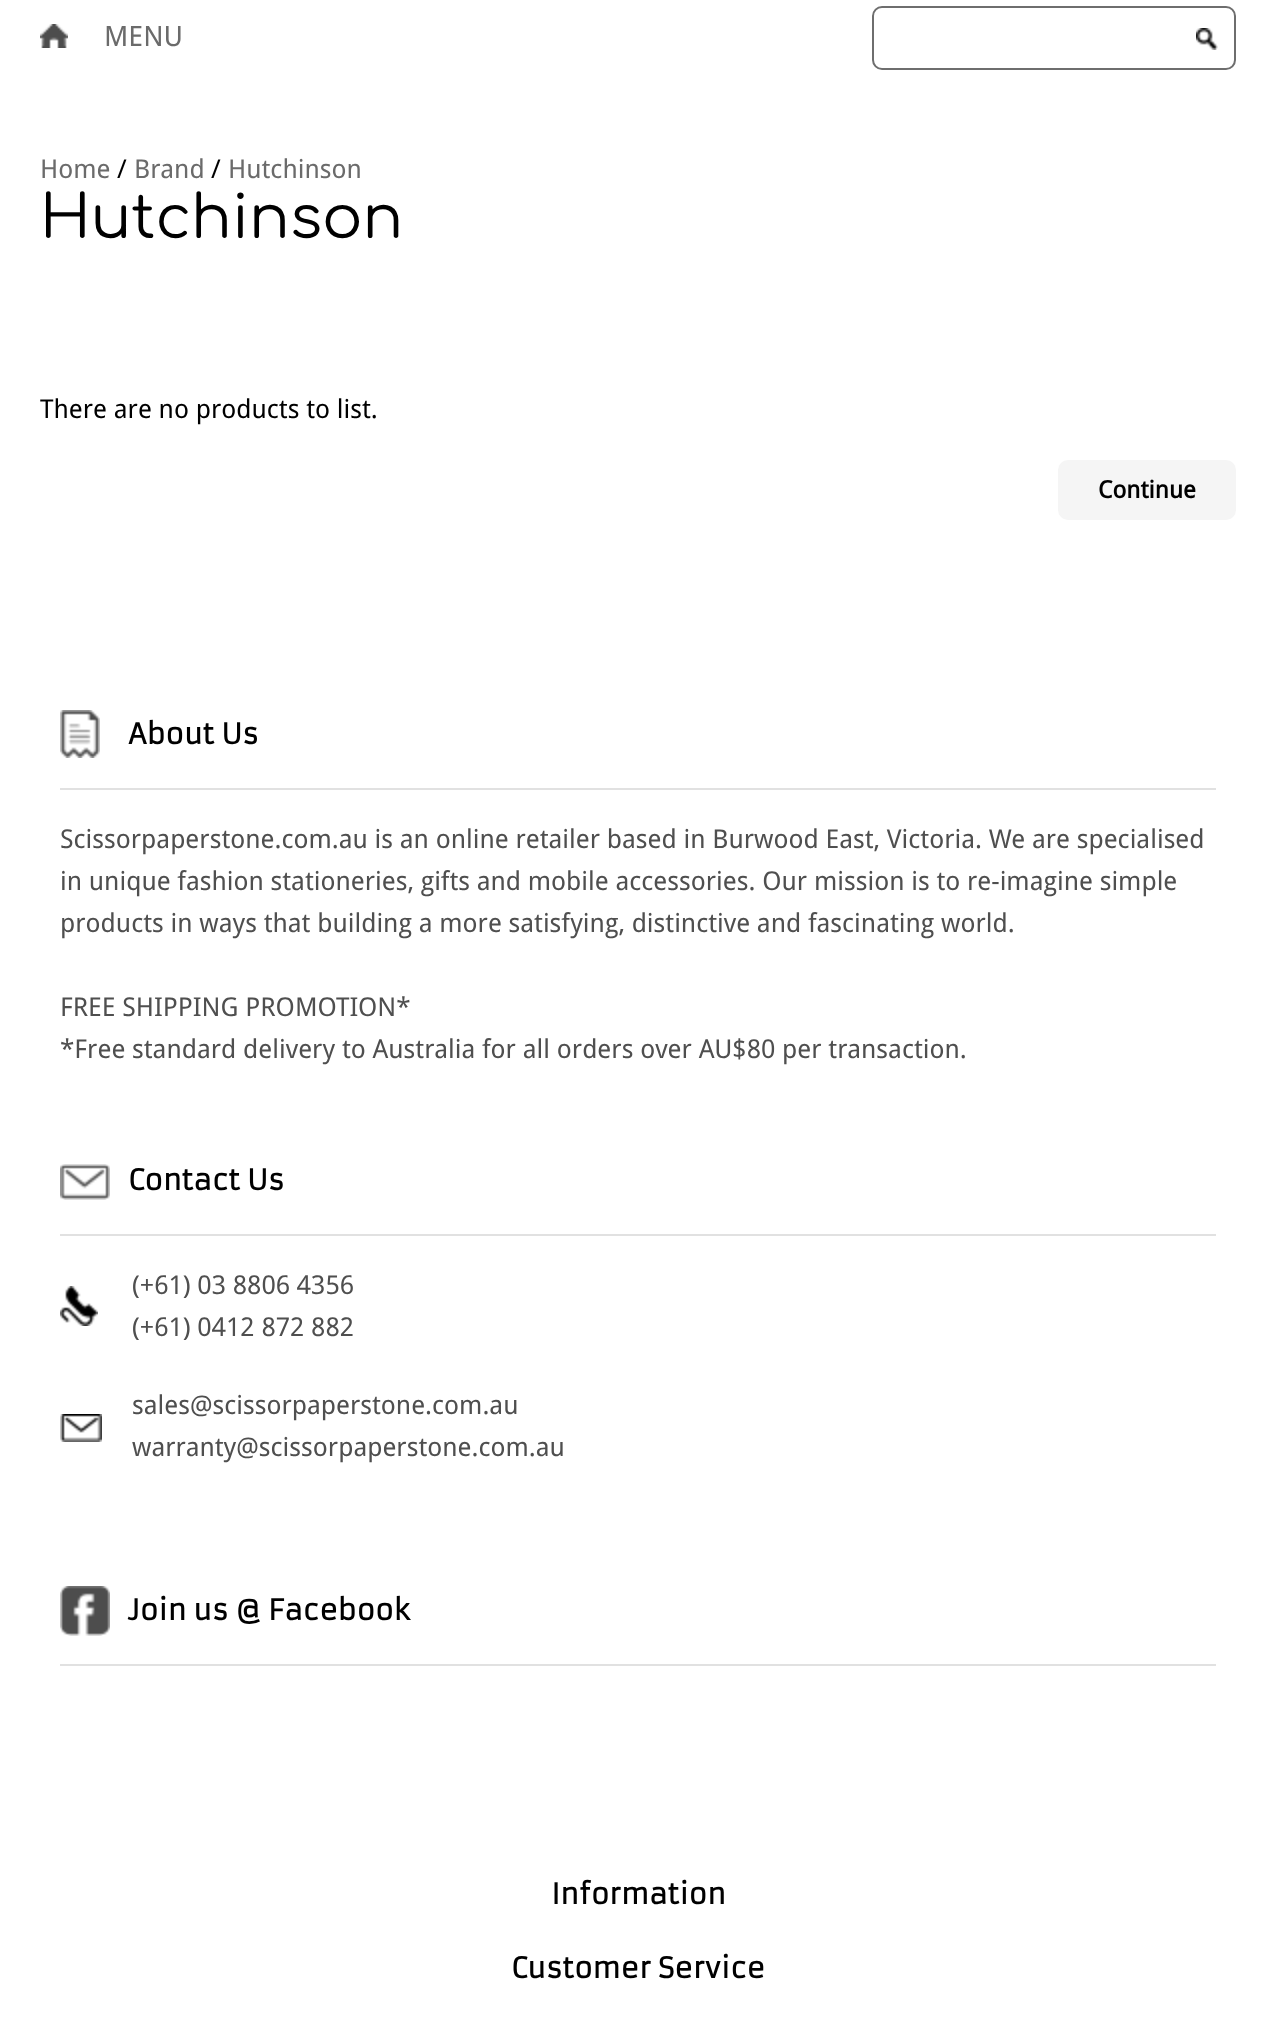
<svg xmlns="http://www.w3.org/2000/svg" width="1275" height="2034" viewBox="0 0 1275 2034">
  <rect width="100%" height="100%" fill="#ffffff"/>
  <image x="40" y="24" width="28" height="24" href="img1.png"/>
  <text x="104" y="46" font-family="Droid Sans" font-size="28" fill="#6b6b6b">MENU</text>
  <rect x="873" y="7" width="362" height="62" rx="9" fill="none" stroke="#6e6e6e" stroke-width="2"/>
  <image x="1196" y="28" width="22" height="22" href="img2.png"/>
  <text x="40" y="178" font-family="Droid Sans" font-size="26" fill="#6b6b6b">Home</text>
  <text x="117" y="178" font-family="Droid Sans" font-size="26" fill="#000000">/</text>
  <text x="134" y="178" font-family="Droid Sans" font-size="26" fill="#6b6b6b">Brand</text>
  <text x="211" y="178" font-family="Droid Sans" font-size="26" fill="#000000">/</text>
  <text x="228" y="178" font-family="Droid Sans" font-size="26" fill="#6b6b6b">Hutchinson</text>
  <text x="40" y="238" font-family="Comfortaa" font-size="60" fill="#000000">Hutchinson</text>
  <text x="40" y="418" font-family="Droid Sans" font-size="26" fill="#000000">There are no products to list.</text>
  <rect x="1058" y="460" width="178" height="60" rx="10" fill="#f5f5f5"/>
  <text x="1098" y="498" font-family="Droid Sans" font-size="24" font-weight="bold" fill="#000000">Continue</text>
  <image x="60" y="710" width="40" height="48" href="img3.png"/>
  <rect x="60" y="788" width="1156" height="2" fill="#e1e1e1"/>
  <text x="128" y="744" font-family="Armata" font-size="28" font-weight="bold" fill="#000000">About Us</text>
  <text x="60" y="848" font-family="Droid Sans" font-size="26" fill="#4f4f4f">Scissorpaperstone.com.au is an online retailer based in Burwood East, Victoria. We are specialised</text>
  <text x="60" y="890" font-family="Droid Sans" font-size="26" fill="#4f4f4f">in unique fashion stationeries, gifts and mobile accessories. Our mission is to re-imagine simple</text>
  <text x="60" y="932" font-family="Droid Sans" font-size="26" fill="#4f4f4f">products in ways that building a more satisfying, distinctive and fascinating world.</text>
  <text x="60" y="1016" font-family="Droid Sans" font-size="26" fill="#4f4f4f">FREE SHIPPING PROMOTION*</text>
  <text x="60" y="1058" font-family="Droid Sans" font-size="26" fill="#4f4f4f">*Free standard delivery to Australia for all orders over AU$80 per transaction.</text>
  <image x="60" y="1164" width="50" height="36" href="img4.png"/>
  <rect x="60" y="1234" width="1156" height="2" fill="#e1e1e1"/>
  <text x="128" y="1190" font-family="Armata" font-size="28" font-weight="bold" fill="#000000">Contact Us</text>
  <image x="60" y="1286" width="38" height="40" href="img5.png"/>
  <text x="132" y="1294" font-family="Droid Sans" font-size="26" fill="#4f4f4f">(+61) 03 8806 4356</text>
  <text x="132" y="1336" font-family="Droid Sans" font-size="26" fill="#4f4f4f">(+61) 0412 872 882</text>
  <image x="60" y="1414" width="42" height="28" href="img6.png"/>
  <text x="132" y="1414" font-family="Droid Sans" font-size="26" fill="#4f4f4f">sales@scissorpaperstone.com.au</text>
  <text x="132" y="1456" font-family="Droid Sans" font-size="26" fill="#4f4f4f">warranty@scissorpaperstone.com.au</text>
  <image x="60" y="1586" width="50" height="50" href="img7.png"/>
  <rect x="60" y="1664" width="1156" height="2" fill="#e1e1e1"/>
  <text x="128" y="1620" font-family="Armata" font-size="28" font-weight="bold" fill="#000000">Join us @ Facebook</text>
  <text x="551" y="1904" font-family="Armata" font-size="28" font-weight="bold" fill="#000000">Information</text>
  <text x="511" y="1978" font-family="Armata" font-size="28" font-weight="bold" fill="#000000">Customer Service</text>
</svg>
